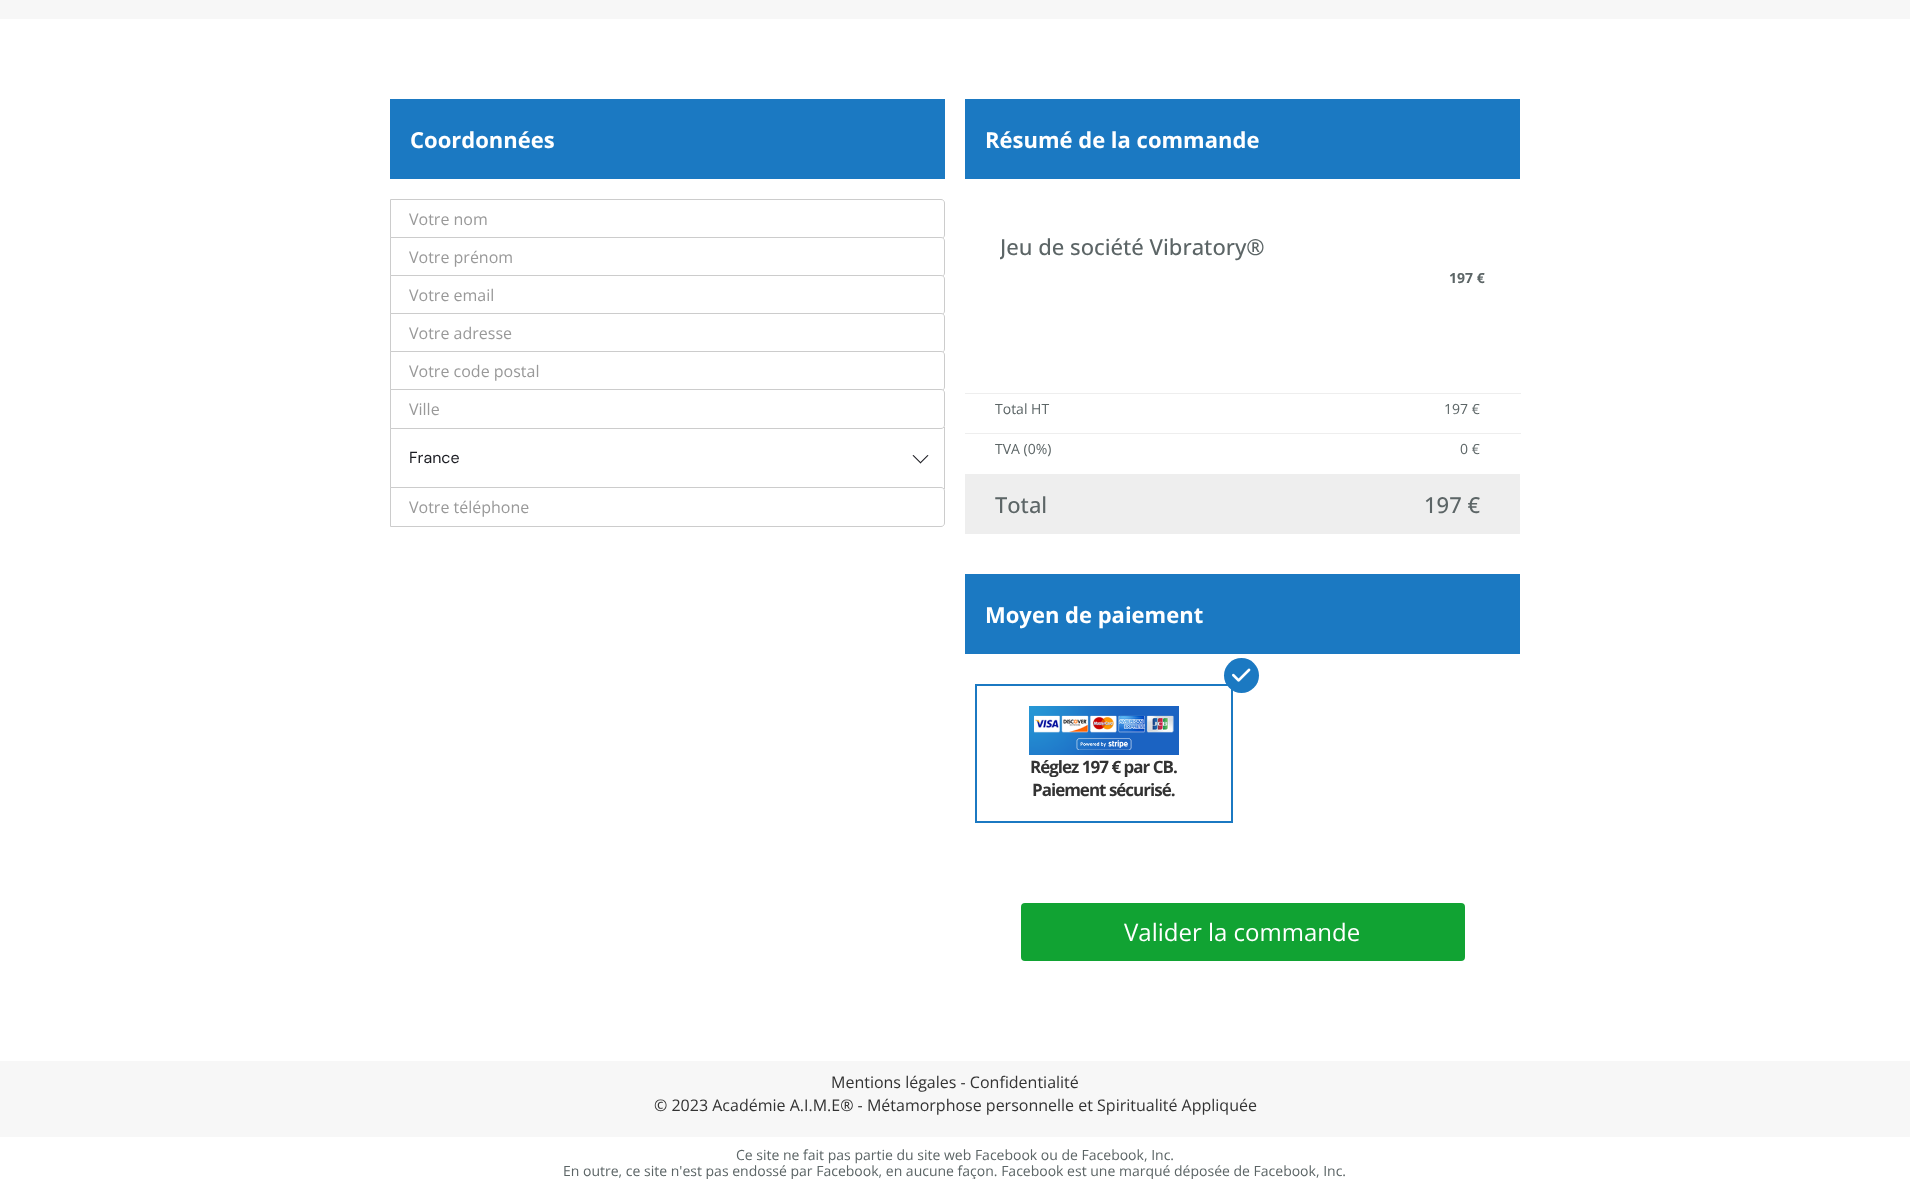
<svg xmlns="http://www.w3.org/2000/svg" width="1910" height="1180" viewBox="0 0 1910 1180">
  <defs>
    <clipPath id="clip1"><rect x="1000" y="234" width="485" height="64"/></clipPath>
    <clipPath id="clip2"><rect x="10" y="1147" width="1890" height="32"/></clipPath>
  </defs>
  <rect width="100%" height="100%" fill="#ffffff"/>
  <rect x="0" y="0" width="1910" height="19" fill="#f7f7f7"/>
  <rect x="390" y="99" width="555" height="80" fill="#1b79c2"/>
  <text x="410" y="148" font-family="Open Sans" font-size="22" font-weight="bold" fill="#ffffff">Coordonnées</text>
  <path d="M390.5 199.5H941C943 199.5 944.5 201 944.5 203V235C944.5 237 943 238.5 941 238.5H390.5Z" fill="none" stroke="#cccccc"/>
  <text x="409" y="225" font-family="Open Sans" font-size="16" fill="#999999">Votre nom</text>
  <path d="M390.5 237.5H941C943 237.5 944.5 239 944.5 241V273C944.5 275 943 276.5 941 276.5H390.5Z" fill="#ffffff" stroke="#cccccc"/>
  <text x="409" y="263" font-family="Open Sans" font-size="16" fill="#999999">Votre prénom</text>
  <path d="M390.5 275.5H941C943 275.5 944.5 277 944.5 279V311C944.5 313 943 314.5 941 314.5H390.5Z" fill="#ffffff" stroke="#cccccc"/>
  <text x="409" y="301" font-family="Open Sans" font-size="16" fill="#999999">Votre email</text>
  <path d="M390.5 313.5H941C943 313.5 944.5 315 944.5 317V349C944.5 351 943 352.5 941 352.5H390.5Z" fill="#ffffff" stroke="#cccccc"/>
  <text x="409" y="339" font-family="Open Sans" font-size="16" fill="#999999">Votre adresse</text>
  <path d="M390.5 351.5H941C943 351.5 944.5 353 944.5 355V387C944.5 389 943 390.5 941 390.5H390.5Z" fill="#ffffff" stroke="#cccccc"/>
  <text x="409" y="377" font-family="Open Sans" font-size="16" fill="#999999">Votre code postal</text>
  <rect x="390.5" y="427.5" width="554" height="61" fill="none" stroke="#cccccc"/>
  <path d="M390.5 389.5H941C943 389.5 944.5 391 944.5 393V425C944.5 427 943 428.5 941 428.5H390.5Z" fill="#ffffff" stroke="#cccccc"/>
  <text x="409" y="415" font-family="Open Sans" font-size="16" fill="#999999">Ville</text>
  <text x="409" y="463" font-family="DM Sans" font-size="16" fill="#1c1d23">France</text>
  <path d="M927.5 455L928.5 455.5L920.5 463.5L920 462.5Z" fill="#1c1d23"/>
  <path d="M913.5 455L921 462.5L920.5 463.5L912.5 455.5Z" fill="#1c1d23"/>
  <path d="M390.5 487.5H941C943 487.5 944.5 489 944.5 491V523C944.5 525 943 526.5 941 526.5H390.5Z" fill="#ffffff" stroke="#cccccc"/>
  <text x="409" y="513" font-family="Open Sans" font-size="16" fill="#999999">Votre téléphone</text>
  <rect x="965" y="99" width="555" height="80" fill="#1b79c2"/>
  <text x="985" y="148" font-family="Open Sans" font-size="22" font-weight="bold" fill="#ffffff">Résumé de la commande</text>
  <g clip-path="url(#clip1)">
    <text x="1000" y="255" font-family="Open Sans" font-size="22" font-weight="500" fill="#5c6566">Jeu de société Vibratory®</text>
  </g>
  <text x="1449" y="283" font-family="Open Sans" font-size="14" font-weight="bold" fill="#5c6566">197 €</text>
  <rect x="965" y="393" width="556" height="1" fill="#eeeeee"/>
  <text x="995" y="414" font-family="Open Sans" font-size="14" fill="#5c6566">Total HT</text>
  <text x="1444" y="414" font-family="Open Sans" font-size="14" fill="#5c6566">197 €</text>
  <rect x="965" y="433" width="556" height="1" fill="#eeeeee"/>
  <text x="995" y="454" font-family="Open Sans" font-size="14" fill="#5c6566">TVA (0%)</text>
  <text x="1460" y="454" font-family="Open Sans" font-size="14" fill="#5c6566">0 €</text>
  <rect x="965" y="474" width="555" height="60" fill="#eeeeee"/>
  <text x="995" y="513" font-family="Open Sans" font-size="22" font-weight="500" fill="#5c6566">Total</text>
  <text x="1424" y="513" font-family="Open Sans" font-size="22" font-weight="500" fill="#5c6566">197 €</text>
  <rect x="965" y="574" width="555" height="80" fill="#1b79c2"/>
  <text x="985" y="623" font-family="Open Sans" font-size="22" font-weight="bold" fill="#ffffff">Moyen de paiement</text>
  <rect x="976" y="685" width="256" height="137" fill="none" stroke="#1b79c2" stroke-width="2"/>
  <circle cx="1241.5" cy="675.5" r="17.5" fill="#1b79c2"/>
  <image x="1232" y="668" width="19" height="14" href="img1.png"/>
  <image x="1029" y="706" width="150" height="49" href="img2.png"/>
  <text x="1030" y="773" font-family="Open Sans" font-size="17" font-weight="bold" letter-spacing="-1" fill="#333333">Réglez 197 € par CB.</text>
  <text x="1032" y="796" font-family="Open Sans" font-size="17" font-weight="bold" letter-spacing="-1" fill="#333333">Paiement sécurisé.</text>
  <rect x="1021" y="903" width="444" height="58" rx="4" fill="#11a333"/>
  <text x="1124" y="941" font-family="Open Sans" font-size="24" fill="#ffffff">Valider la commande</text>
  <rect x="0" y="1061" width="1910" height="76" fill="#f7f7f7"/>
  <text x="831" y="1088" font-family="Open Sans" font-size="16" fill="#333333">Mentions légales - Confidentialité</text>
  <text x="654" y="1111" font-family="Open Sans" font-size="16" fill="#333333">© 2023 Académie A.I.M.E® - Métamorphose personnelle et Spiritualité Appliquée</text>
  <text x="736" y="1160" font-family="Open Sans" font-size="14" fill="#5c6566">Ce site ne fait pas partie du site web Facebook ou de Facebook, Inc.</text>
  <g clip-path="url(#clip2)">
    <text x="563" y="1176" font-family="Open Sans" font-size="14" fill="#5c6566">En outre, ce site n'est pas endossé par Facebook, en aucune façon. Facebook est une marqué déposée de Facebook, Inc.</text>
  </g>
</svg>
